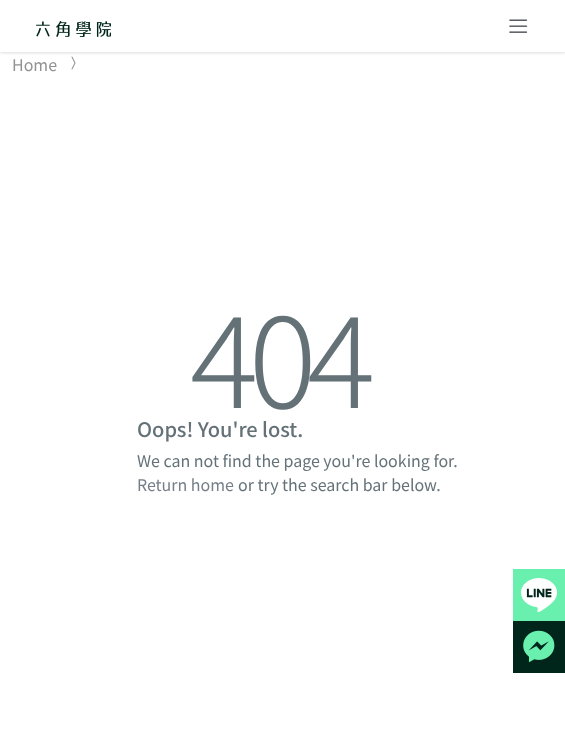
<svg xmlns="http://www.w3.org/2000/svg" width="565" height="733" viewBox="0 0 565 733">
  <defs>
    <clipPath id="clip1"><rect x="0" y="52" width="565" height="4"/></clipPath>
    <filter id="blur1" x="-50%" y="-200%" width="200%" height="500%"><feGaussianBlur stdDeviation="1.5"/></filter>
  </defs>
  <rect width="100%" height="100%" fill="#ffffff"/>
  <image x="71" y="56" width="5" height="14" href="img3.png"/>
  <g clip-path="url(#clip1)">
    <rect x="0" y="1" width="565" height="52" fill="#dddddd" filter="url(#blur1)"/>
  </g>
  <image x="36" y="21" width="75" height="16" href="img1.png"/>
  <image x="509" y="19" width="19" height="14" href="img2.png"/>
  <text x="12" y="71" font-family="Noto Sans TC" font-size="16" fill="#929292">Home</text>
  <text x="190" y="408" font-family="Noto Sans TC" font-size="128" font-weight="300" letter-spacing="-10" fill="#647278">404</text>
  <text x="137" y="437" font-family="Noto Sans TC" font-size="20" font-weight="500" fill="#647278">Oops! You're lost.</text>
  <text x="137" y="467" font-family="Noto Sans TC" font-size="16" fill="#647278">We can not find the page you're looking for.</text>
  <text x="137" y="491" font-family="Noto Sans TC" font-size="16" fill="#767f88">Return home</text>
  <text x="238" y="491" font-family="Noto Sans TC" font-size="16" fill="#647278">or try the search bar below.</text>
  <rect x="513" y="569" width="52" height="52" fill="#69f0ae"/>
  <image x="521" y="578" width="36" height="34" href="img4.png"/>
  <rect x="513" y="621" width="52" height="52" fill="#00251a"/>
  <image x="523" y="630" width="32" height="33" href="img5.png"/>
</svg>
